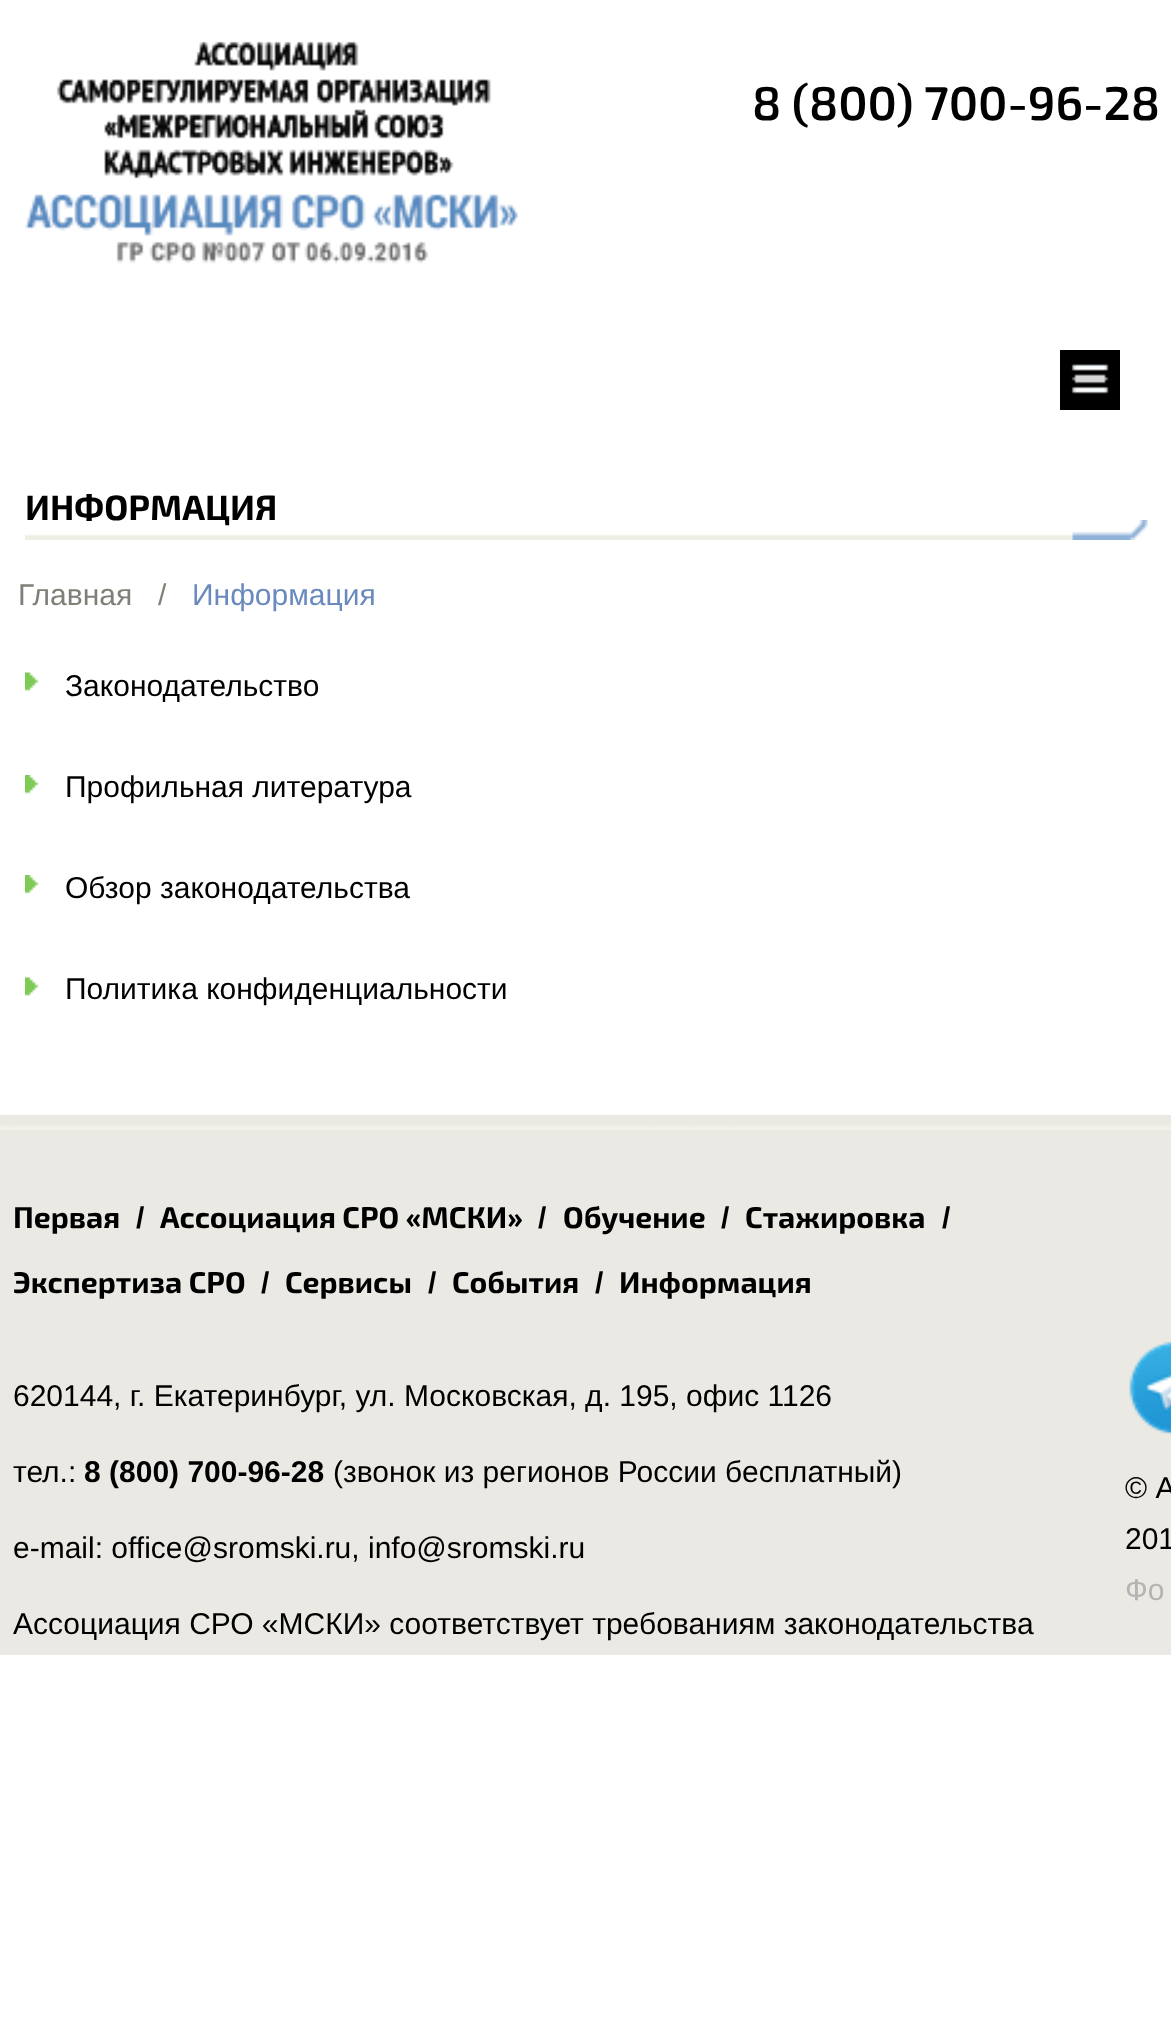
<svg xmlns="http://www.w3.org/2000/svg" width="1171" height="2034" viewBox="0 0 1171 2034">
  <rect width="100%" height="100%" fill="#ffffff"/>
  <image x="25" y="41" width="493" height="223" href="img1.png"/>
  <text x="752" y="120" font-family="'Exo 2'" font-size="47.5" font-weight="600" fill="#000000">8 (800) 700-96-28</text>
  <image x="1060" y="350" width="60" height="60" href="img2.png"/>
  <image x="25" y="520" width="1123" height="20" href="img3.png"/>
  <text x="25" y="520" font-family="'Exo 2'" font-size="35" font-weight="bold" fill="#000000">ИНФОРМАЦИЯ</text>
  <text x="18" y="605" font-family="Liberation Sans" font-size="30" fill="#807f77">Главная</text>
  <text x="158" y="605" font-family="Liberation Sans" font-size="30" fill="#807f77">/</text>
  <text x="192" y="605" font-family="Liberation Sans" font-size="30" fill="#6a8abd">Информация</text>
  <image x="25" y="672" width="14" height="19" href="img4.png"/>
  <text x="65" y="696" font-family="Liberation Sans" font-size="30" fill="#000000">Законодательство</text>
  <image x="25" y="775" width="14" height="19" href="img5.png"/>
  <text x="65" y="797" font-family="Liberation Sans" font-size="30" fill="#000000">Профильная литература</text>
  <image x="25" y="875" width="14" height="19" href="img6.png"/>
  <text x="65" y="898" font-family="Liberation Sans" font-size="30" fill="#000000">Обзор законодательства</text>
  <image x="25" y="977" width="14" height="19" href="img4.png"/>
  <text x="65" y="999" font-family="Liberation Sans" font-size="30" fill="#000000">Политика конфиденциальности</text>
  <image x="0" y="1115" width="1171" height="540" href="img7.png"/>
  <text x="13" y="1228" font-family="'Exo 2'" font-size="30" font-weight="bold" fill="#000000">Первая</text>
  <text x="136" y="1228" font-family="Liberation Sans" font-size="30" font-weight="bold" fill="#000000">/</text>
  <text x="160" y="1228" font-family="'Exo 2'" font-size="30" font-weight="bold" fill="#000000">Ассоциация СРО «МСКИ»</text>
  <text x="538" y="1228" font-family="Liberation Sans" font-size="30" font-weight="bold" fill="#000000">/</text>
  <text x="563" y="1228" font-family="'Exo 2'" font-size="30" font-weight="bold" fill="#000000">Обучение</text>
  <text x="721" y="1228" font-family="Liberation Sans" font-size="30" font-weight="bold" fill="#000000">/</text>
  <text x="745" y="1228" font-family="'Exo 2'" font-size="30" font-weight="bold" fill="#000000">Стажировка</text>
  <text x="942" y="1228" font-family="Liberation Sans" font-size="30" font-weight="bold" fill="#000000">/</text>
  <text x="13" y="1293" font-family="'Exo 2'" font-size="30" font-weight="bold" fill="#000000">Экспертиза СРО</text>
  <text x="261" y="1293" font-family="Liberation Sans" font-size="30" font-weight="bold" fill="#000000">/</text>
  <text x="285" y="1293" font-family="'Exo 2'" font-size="30" font-weight="bold" fill="#000000">Сервисы</text>
  <text x="428" y="1293" font-family="Liberation Sans" font-size="30" font-weight="bold" fill="#000000">/</text>
  <text x="452" y="1293" font-family="'Exo 2'" font-size="30" font-weight="bold" fill="#000000">События</text>
  <text x="595" y="1293" font-family="Liberation Sans" font-size="30" font-weight="bold" fill="#000000">/</text>
  <text x="619" y="1293" font-family="'Exo 2'" font-size="30" font-weight="bold" fill="#000000">Информация</text>
  <text x="13" y="1406" font-family="Liberation Sans" font-size="30" fill="#000000">620144, г. Екатеринбург, ул. Московская, д. 195, офис 1126</text>
  <text x="13" y="1482" font-family="Liberation Sans" font-size="30" fill="#000000">тел.:</text>
  <text x="84" y="1482" font-family="Liberation Sans" font-size="30" font-weight="bold" fill="#000000">8 (800) 700-96-28</text>
  <text x="333" y="1482" font-family="Liberation Sans" font-size="30" fill="#000000">(звонок из регионов России бесплатный)</text>
  <text x="13" y="1558" font-family="Liberation Sans" font-size="30" fill="#000000">e-mail: office@sromski.ru, info@sromski.ru</text>
  <text x="13" y="1634" font-family="Liberation Sans" font-size="30" fill="#000000">Ассоциация СРО «МСКИ» соответствует требованиям законодательства</text>
  <image x="1129" y="1341" width="42" height="94" href="img8.png"/>
  <text x="1125" y="1498" font-family="Liberation Sans" font-size="30" fill="#000000">© А</text>
  <text x="1125" y="1549" font-family="Liberation Sans" font-size="30" fill="#000000">201</text>
  <text x="1125" y="1600" font-family="Liberation Sans" font-size="30" fill="#b5b3b3">Фо</text>
</svg>
